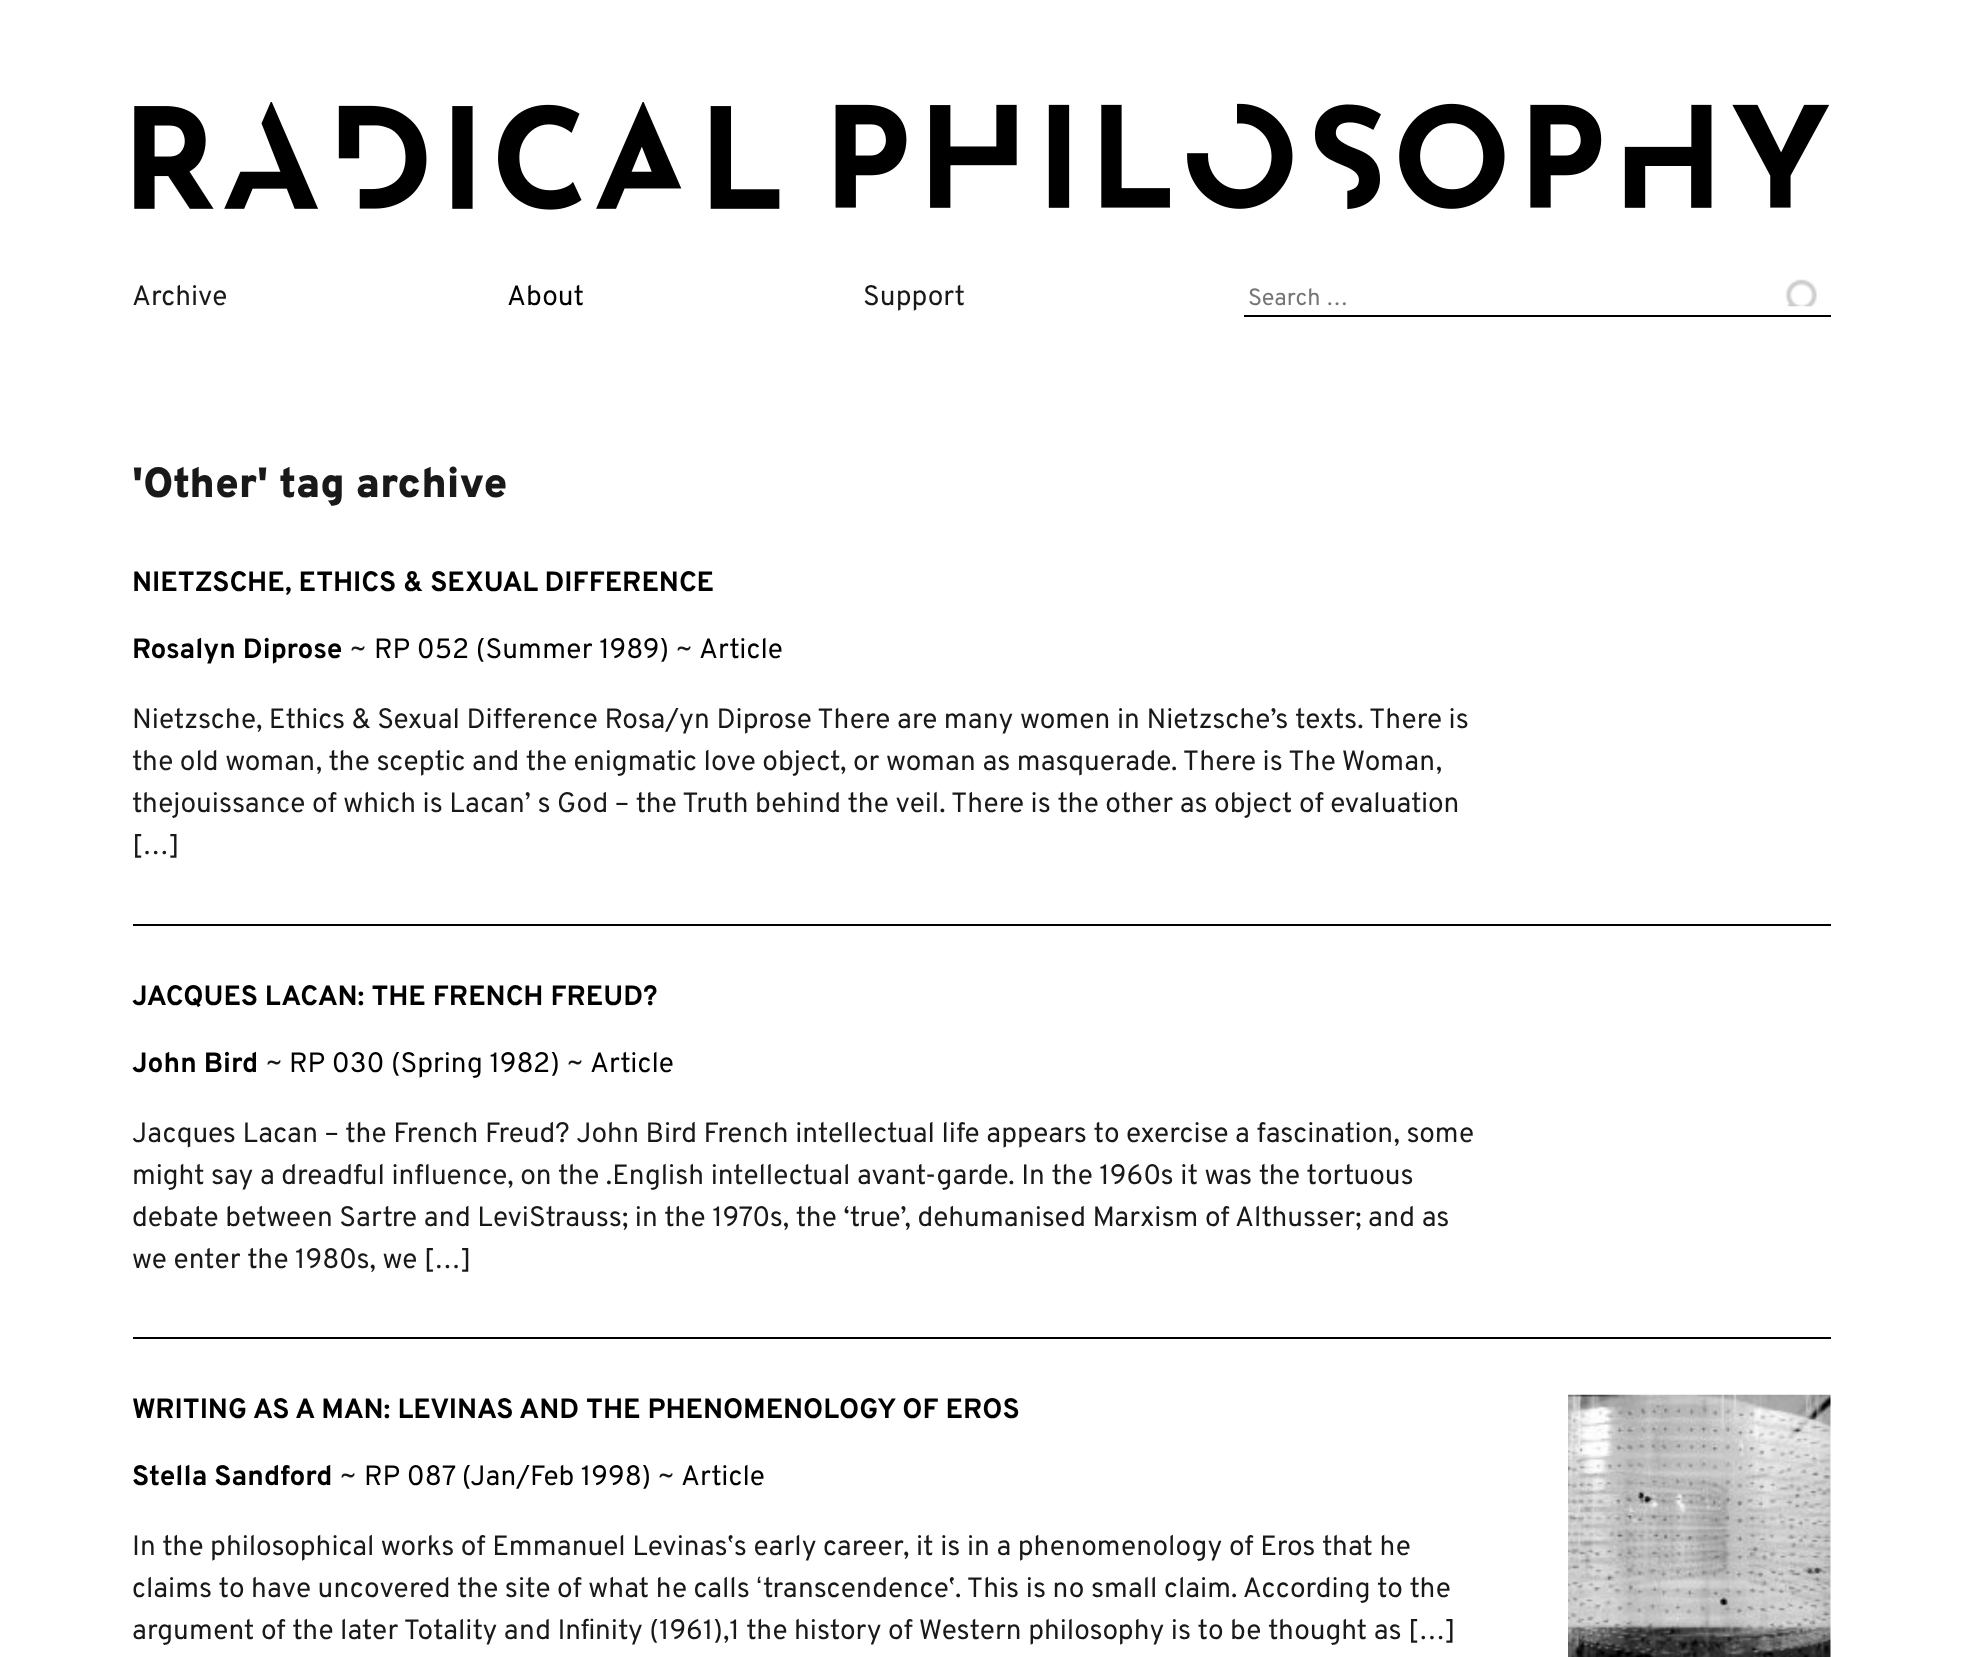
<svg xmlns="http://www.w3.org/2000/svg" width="1961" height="1657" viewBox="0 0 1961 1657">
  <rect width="100%" height="100%" fill="#ffffff"/>
  <image x="134" y="102" width="1695" height="108" href="img1.png"/>
  <text x="132" y="305" font-family="Overpass" font-size="28" fill="#191919">Archive</text>
  <text x="507" y="305" font-family="Overpass" font-size="28" fill="#000000">About</text>
  <text x="863" y="305" font-family="Overpass" font-size="28" fill="#191919">Support</text>
  <rect x="1244" y="315" width="587" height="2" fill="#000000"/>
  <text x="1248" y="305" font-family="Overpass" font-size="23.5" fill="#757575">Search …</text>
  <image x="1785" y="279" width="32" height="28" href="img2.png"/>
  <text x="132" y="497" font-family="Overpass" font-size="42" font-weight="900" fill="#191919">'Other' tag archive</text>
  <rect x="133" y="924" width="1698" height="2" fill="#000000"/>
  <text x="132" y="591" font-family="Overpass" font-size="28" font-weight="bold" fill="#000000">NIETZSCHE, ETHICS &amp; SEXUAL DIFFERENCE</text>
  <text x="132" y="658" font-family="Overpass" font-size="28" font-weight="bold" fill="#000000">Rosalyn Diprose</text>
  <text x="349" y="658" font-family="Overpass" font-size="28" fill="#191919">~</text>
  <text x="374" y="658" font-family="Overpass" font-size="28" fill="#000000">RP 052 (Summer 1989)</text>
  <text x="675" y="658" font-family="Overpass" font-size="28" fill="#191919">~</text>
  <text x="699" y="658" font-family="Overpass" font-size="28" fill="#000000">Article</text>
  <text x="132" y="728" font-family="Overpass" font-size="28" fill="#191919">Nietzsche, Ethics &amp; Sexual Difference Rosa/yn Diprose There are many women in Nietzsche’s texts. There is</text>
  <text x="132" y="770" font-family="Overpass" font-size="28" fill="#191919">the old woman, the sceptic and the enigmatic love object, or woman as masquerade. There is The Woman,</text>
  <text x="132" y="812" font-family="Overpass" font-size="28" fill="#191919">thejouissance of which is Lacan’ s God – the Truth behind the veil. There is the other as object of evaluation</text>
  <text x="132" y="854" font-family="Overpass" font-size="28" fill="#191919">[…]</text>
  <rect x="133" y="1337" width="1698" height="2" fill="#000000"/>
  <text x="132" y="1005" font-family="Overpass" font-size="28" font-weight="bold" fill="#000000">JACQUES LACAN: THE FRENCH FREUD?</text>
  <text x="132" y="1072" font-family="Overpass" font-size="28" font-weight="bold" fill="#000000">John Bird</text>
  <text x="265" y="1072" font-family="Overpass" font-size="28" fill="#191919">~</text>
  <text x="289" y="1072" font-family="Overpass" font-size="28" fill="#000000">RP 030 (Spring 1982)</text>
  <text x="566" y="1072" font-family="Overpass" font-size="28" fill="#191919">~</text>
  <text x="590" y="1072" font-family="Overpass" font-size="28" fill="#000000">Article</text>
  <text x="132" y="1142" font-family="Overpass" font-size="28" fill="#191919">Jacques Lacan – the French Freud? John Bird French intellectual life appears to exercise a fascination, some</text>
  <text x="132" y="1184" font-family="Overpass" font-size="28" fill="#191919">might say a dreadful influence, on the .English intellectual avant-garde. In the 1960s it was the tortuous</text>
  <text x="132" y="1226" font-family="Overpass" font-size="28" fill="#191919">debate between Sartre and LeviStrauss; in the 1970s, the ‘true’, dehumanised Marxism of Althusser; and as</text>
  <text x="132" y="1268" font-family="Overpass" font-size="28" fill="#191919">we enter the 1980s, we […]</text>
  <text x="132" y="1418" font-family="Overpass" font-size="28" font-weight="bold" fill="#000000">WRITING AS A MAN: LEVINAS AND THE PHENOMENOLOGY OF EROS</text>
  <text x="132" y="1485" font-family="Overpass" font-size="28" font-weight="bold" fill="#000000">Stella Sandford</text>
  <text x="339" y="1485" font-family="Overpass" font-size="28" fill="#191919">~</text>
  <text x="364" y="1485" font-family="Overpass" font-size="28" fill="#000000">RP 087 (Jan/Feb 1998)</text>
  <text x="657" y="1485" font-family="Overpass" font-size="28" fill="#191919">~</text>
  <text x="681" y="1485" font-family="Overpass" font-size="28" fill="#000000">Article</text>
  <text x="132" y="1555" font-family="Overpass" font-size="28" fill="#191919">In the philosophical works of Emmanuel Levinasʼs early career, it is in a phenomenology of Eros that he</text>
  <text x="132" y="1597" font-family="Overpass" font-size="28" fill="#191919">claims to have uncovered the site of what he calls</text>
  <text x="756" y="1597" font-family="Liberation Sans" font-size="28" fill="#191919">ʻ</text>
  <text x="763" y="1597" font-family="Overpass" font-size="28" fill="#191919">transcendenceʼ. This is no small claim. According to the</text>
  <text x="132" y="1639" font-family="Overpass" font-size="28" fill="#191919">argument of the later Totality and In</text>
  <text x="581" y="1639" font-family="Liberation Sans" font-size="28" fill="#191919">ﬁ</text>
  <text x="595" y="1639" font-family="Overpass" font-size="28" fill="#191919">nity (1961),1 the history of Western philosophy is to be thought as […]</text>
  <image x="1568" y="1394" width="263" height="263" href="img3.png"/>
</svg>
